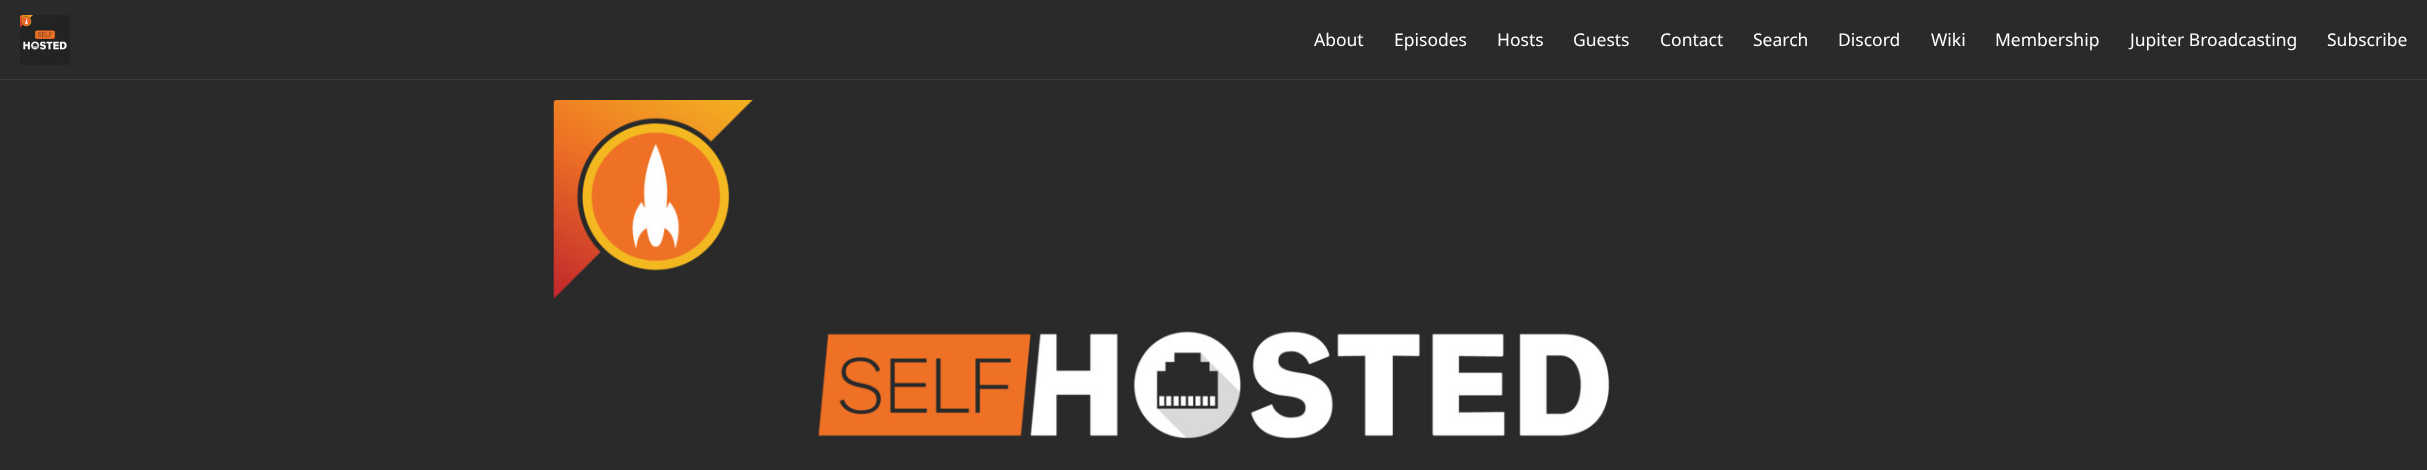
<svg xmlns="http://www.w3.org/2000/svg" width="2427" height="470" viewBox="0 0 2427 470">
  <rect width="100%" height="100%" fill="#2a2a2a"/>
  <rect x="0" y="79" width="2427" height="1" fill="#3b3b3b"/>
  <image x="20" y="15" width="50" height="50" href="img1.png"/>
  <text x="1314" y="46" font-family="Noto Sans" font-size="17.5" fill="#ffffff">About</text>
  <text x="1394" y="46" font-family="Noto Sans" font-size="17.5" fill="#ffffff">Episodes</text>
  <text x="1497" y="46" font-family="Noto Sans" font-size="17.5" fill="#ffffff">Hosts</text>
  <text x="1573" y="46" font-family="Noto Sans" font-size="17.5" fill="#ffffff">Guests</text>
  <text x="1660" y="46" font-family="Noto Sans" font-size="17.5" fill="#ffffff">Contact</text>
  <text x="1753" y="46" font-family="Noto Sans" font-size="17.5" fill="#ffffff">Search</text>
  <text x="1838" y="46" font-family="Noto Sans" font-size="17.5" fill="#ffffff">Discord</text>
  <text x="1931" y="46" font-family="Noto Sans" font-size="17.5" fill="#ffffff">Wiki</text>
  <text x="1995" y="46" font-family="Noto Sans" font-size="17.5" fill="#ffffff">Membership</text>
  <text x="2130" y="46" font-family="Noto Sans" font-size="17.5" fill="#ffffff">Jupiter Broadcasting</text>
  <text x="2327" y="46" font-family="Noto Sans" font-size="17.5" fill="#ffffff">Subscribe</text>
  <image x="553" y="100" width="1057" height="341" href="img2.png"/>
</svg>
